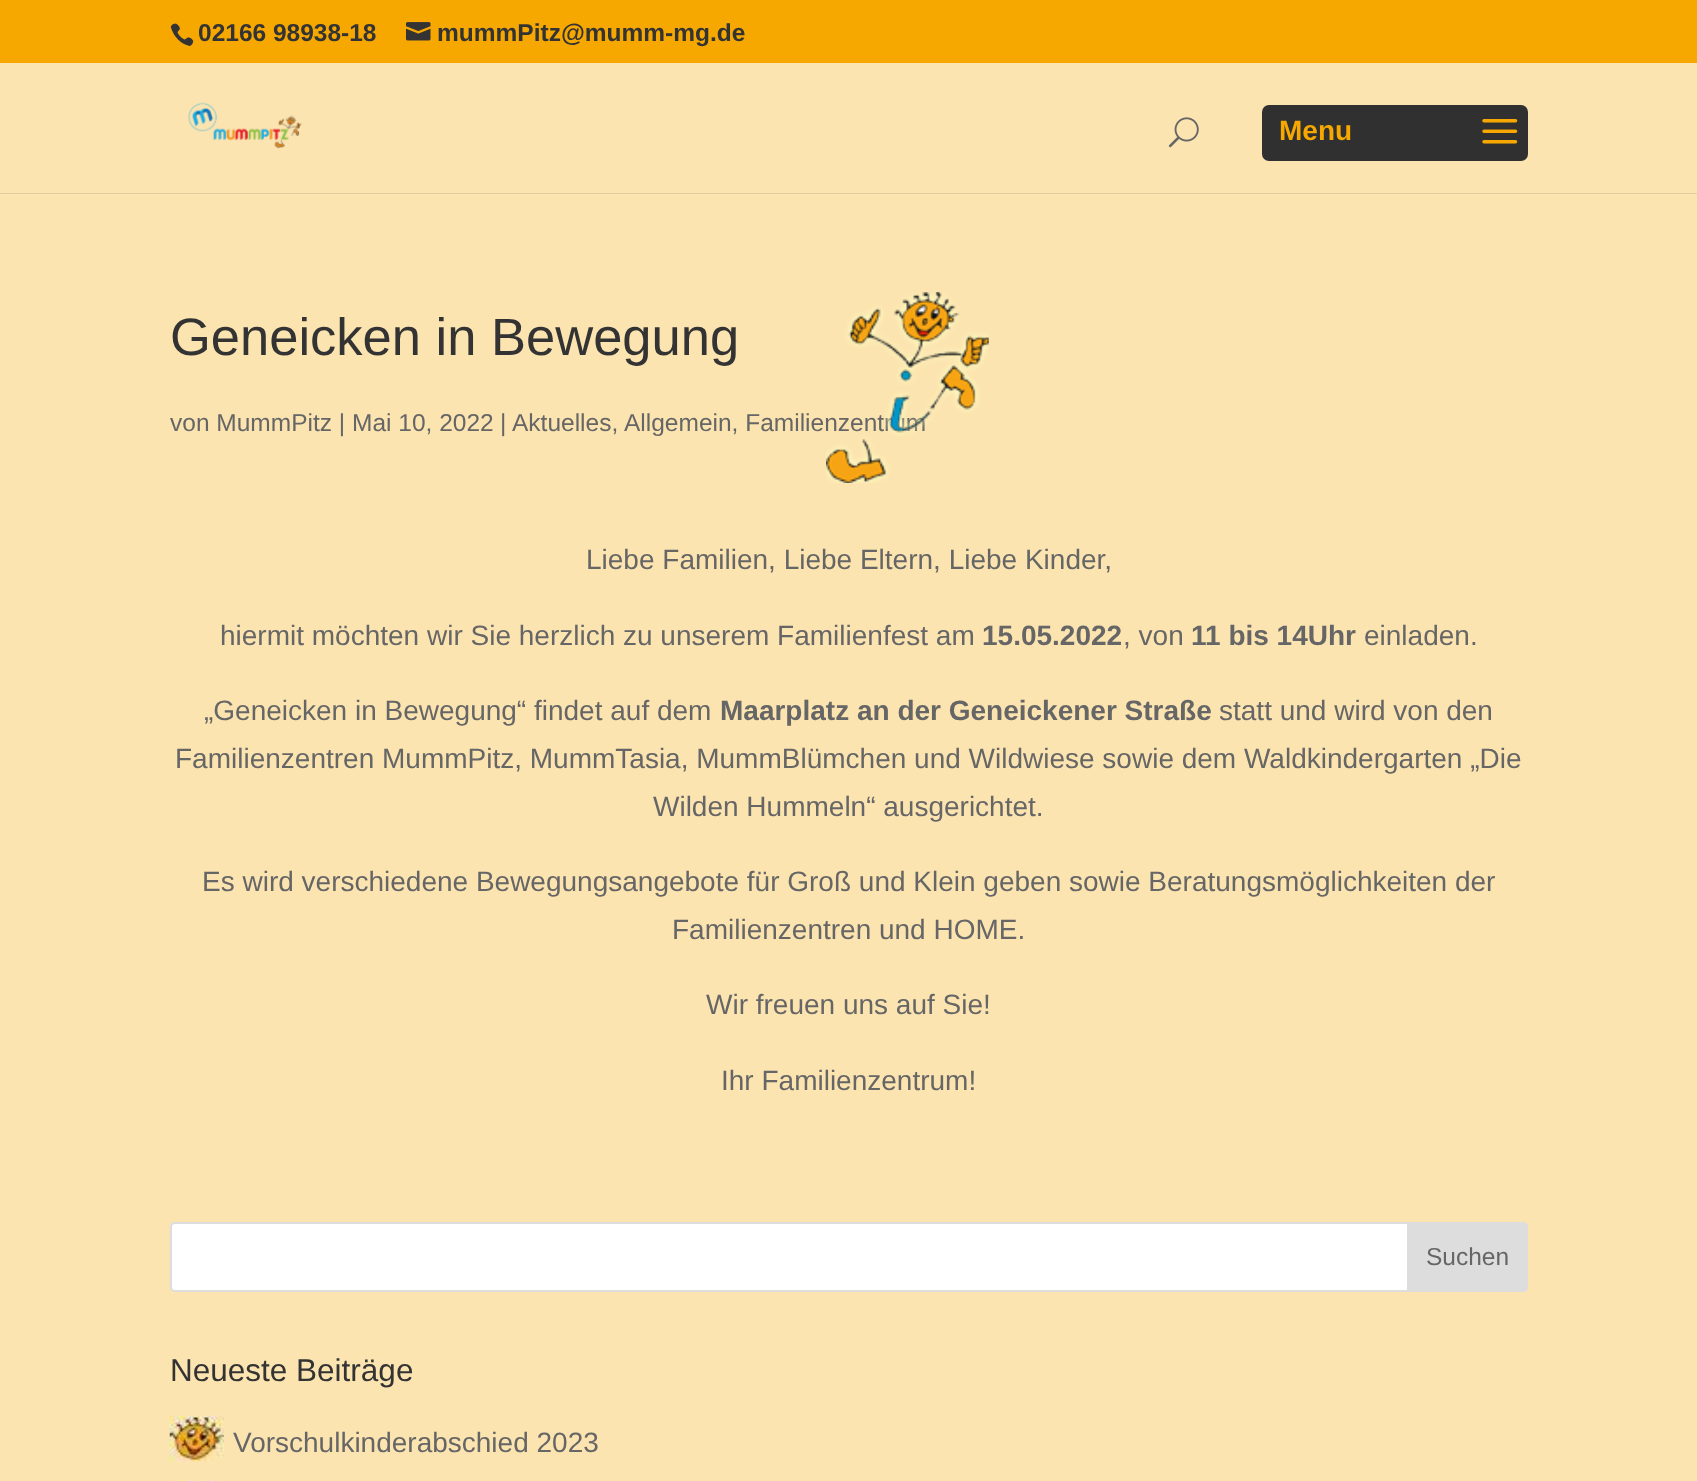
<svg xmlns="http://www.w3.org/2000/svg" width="1697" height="1481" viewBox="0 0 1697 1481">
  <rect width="100%" height="100%" fill="#fce4b0"/>
  <rect x="0" y="0" width="1697" height="63" fill="#f6a800"/>
  <image x="170" y="23" width="24" height="23" href="img1.png"/>
  <text x="198" y="41" font-family="Liberation Sans" font-size="24.5" font-weight="bold" fill="#333333">02166 98938-18</text>
  <image x="406" y="22" width="25" height="19" href="img2.png"/>
  <text x="437" y="41" font-family="Liberation Sans" font-size="24.5" font-weight="bold" fill="#333333">mummPitz@mumm-mg.de</text>
  <path d="M0 192V194H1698V65V192Z" fill="#e3cd9e"/>
  <rect x="0" y="192" width="1697" height="1" fill="#fce4b0"/>
  <image x="187" y="102" width="115" height="47" href="img3.png"/>
  <image x="1168" y="117" width="31" height="31" href="img4.png"/>
  <rect x="1262" y="105" width="266" height="56" rx="7" fill="#303030"/>
  <text x="1279" y="140" font-family="Liberation Sans" font-size="28" font-weight="bold" fill="#f6a800">Menu</text>
  <image x="1482" y="119" width="36" height="25" href="img5.png"/>
  <text x="170" y="355" font-family="Liberation Sans" font-size="52.5" fill="#333333">Geneicken in Bewegung</text>
  <text x="624" y="431" font-family="Liberation Sans" font-size="24.5" fill="#666666">Allgemein, Familienzentrum</text>
  <image x="826" y="292" width="163" height="191" href="img6.png"/>
  <text x="170" y="431" font-family="Liberation Sans" font-size="24.5" fill="#666666">von MummPitz | Mai 10, 2022</text>
  <text x="500" y="431" font-family="Liberation Sans" font-size="24.5" fill="#666666">|</text>
  <text x="512" y="431" font-family="Liberation Sans" font-size="24.5" fill="#666666">Aktuelles,</text>
  <text x="586" y="569" font-family="Liberation Sans" font-size="28" fill="#666666">Liebe Familien, Liebe Eltern, Liebe Kinder,</text>
  <text x="220" y="645" font-family="Liberation Sans" font-size="28" fill="#666666">hiermit möchten wir Sie herzlich zu unserem Familienfest am</text>
  <text x="982" y="645" font-family="Liberation Sans" font-size="28" font-weight="bold" fill="#666666">15.05.2022</text>
  <text x="1123" y="645" font-family="Liberation Sans" font-size="28" fill="#666666">, von</text>
  <text x="1191" y="645" font-family="Liberation Sans" font-size="28" font-weight="bold" fill="#666666">11 bis 14Uhr</text>
  <text x="1364" y="645" font-family="Liberation Sans" font-size="28" fill="#666666">einladen.</text>
  <text x="204" y="720" font-family="Liberation Sans" font-size="28" fill="#666666">„Geneicken in Bewegung“ findet auf dem</text>
  <text x="720" y="720" font-family="Liberation Sans" font-size="28" font-weight="bold" fill="#666666">Maarplatz an der Geneickener Straße</text>
  <text x="1219" y="720" font-family="Liberation Sans" font-size="28" fill="#666666">statt und wird von den</text>
  <text x="175" y="768" font-family="Liberation Sans" font-size="28" fill="#666666">Familienzentren MummPitz, MummTasia, MummBlümchen und Wildwiese sowie dem Waldkindergarten „Die</text>
  <text x="653" y="816" font-family="Liberation Sans" font-size="28" fill="#666666">Wilden Hummeln“ ausgerichtet.</text>
  <text x="202" y="891" font-family="Liberation Sans" font-size="28" fill="#666666">Es wird verschiedene Bewegungsangebote für Groß und Klein geben sowie Beratungsmöglichkeiten der</text>
  <text x="672" y="939" font-family="Liberation Sans" font-size="28" fill="#666666">Familienzentren und HOME.</text>
  <text x="706" y="1014" font-family="Liberation Sans" font-size="28" fill="#666666">Wir freuen uns auf Sie!</text>
  <text x="721" y="1090" font-family="Liberation Sans" font-size="28" fill="#666666">Ihr Familienzentrum!</text>
  <rect x="171" y="1223" width="1356" height="68" rx="4" fill="#ffffff" stroke="#dddddd" stroke-width="2"/>
  <path d="M1408 1223H1523C1525 1223 1527 1225 1527 1227V1287C1527 1289 1525 1291 1523 1291H1408Z" fill="#dddddd" stroke="#dddddd" stroke-width="2"/>
  <text x="1426" y="1265" font-family="Liberation Sans" font-size="24.5" fill="#666666">Suchen</text>
  <text x="170" y="1381" font-family="Liberation Sans" font-size="31.5" fill="#333333">Neueste Beiträge</text>
  <image x="169" y="1415" width="55" height="47" href="img7.png"/>
  <text x="233" y="1452" font-family="Liberation Sans" font-size="28" fill="#666666">Vorschulkinderabschied 2023</text>
  <image x="169" y="1480" width="55" height="1" href="img8.png"/>
</svg>
